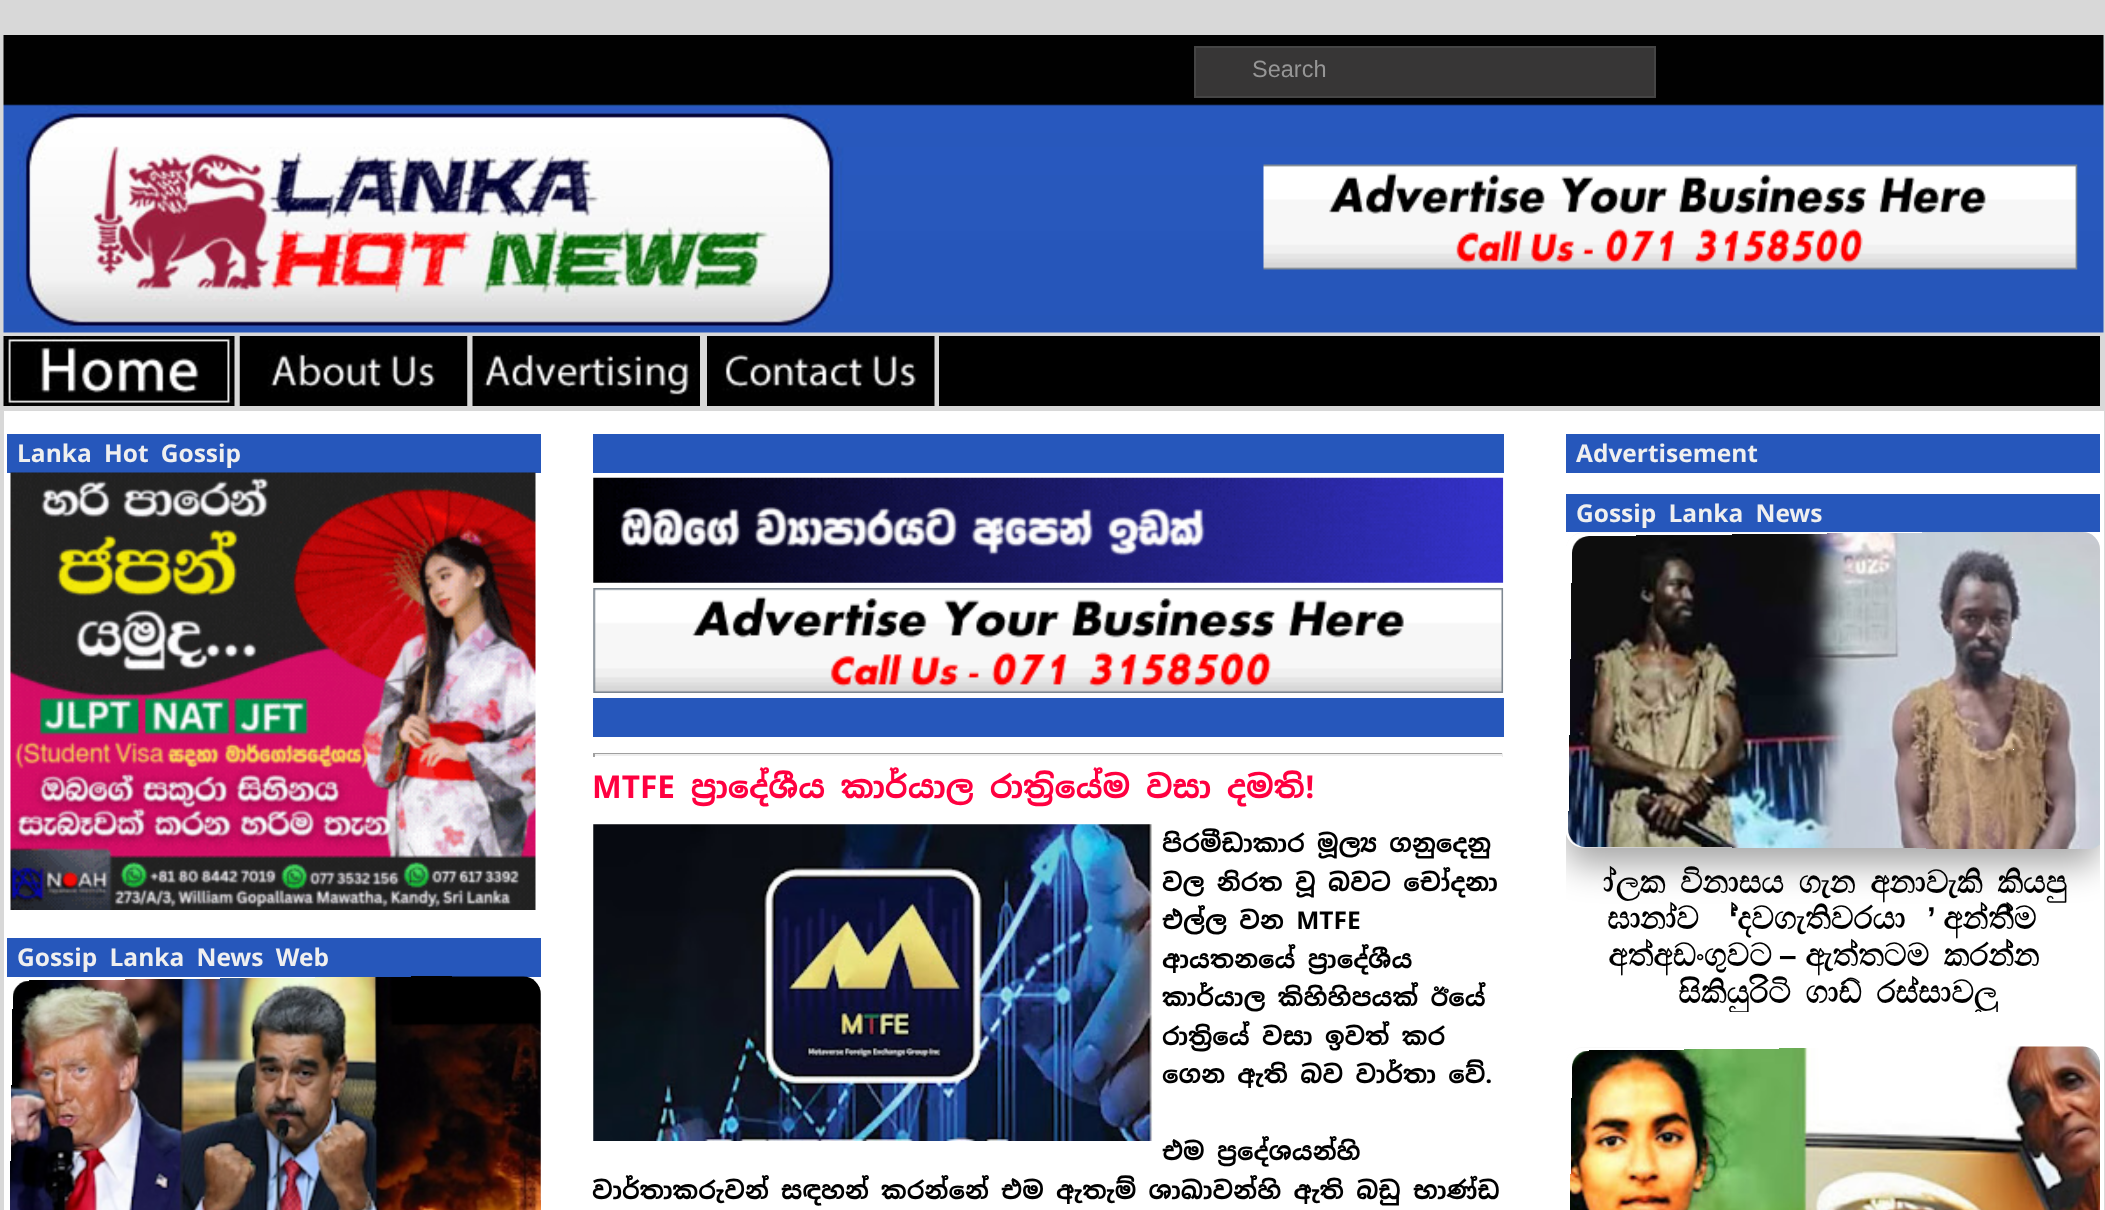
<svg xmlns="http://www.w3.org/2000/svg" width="2105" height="1210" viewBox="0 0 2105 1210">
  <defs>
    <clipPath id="clip1"><rect x="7" y="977" width="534" height="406" rx="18"/></clipPath>
    <clipPath id="clip2"><path d="M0 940H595V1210H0ZM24 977.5L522 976C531.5 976 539.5 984 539.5 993.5V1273C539.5 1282.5 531.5 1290.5 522 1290.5L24 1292C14.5 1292 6.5 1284 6.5 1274.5V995C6.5 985.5 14.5 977.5 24 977.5Z" clip-rule="evenodd"/></clipPath>
    <filter id="blur1" x="-50%" y="-200%" width="200%" height="500%"><feGaussianBlur stdDeviation="17.5"/></filter>
    <clipPath id="clip3"><rect x="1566" y="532" width="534" height="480" rx="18"/></clipPath>
    <clipPath id="clip4"><path d="M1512 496H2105V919H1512ZM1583 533L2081.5 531.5C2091 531.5 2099 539.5 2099 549V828.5C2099 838 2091 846 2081.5 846L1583 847.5C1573.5 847.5 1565.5 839.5 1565.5 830V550.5C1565.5 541 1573.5 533 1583 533Z" clip-rule="evenodd"/></clipPath>
    <clipPath id="clip5"><rect x="1566" y="532" width="534" height="480" rx="18"/></clipPath>
    <clipPath id="clip6"><rect x="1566" y="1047" width="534" height="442" rx="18"/></clipPath>
    <clipPath id="clip7"><path d="M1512 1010H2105V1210H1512ZM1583 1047.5L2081.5 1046C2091 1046 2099 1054 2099 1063.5V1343C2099 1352.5 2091 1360.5 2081.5 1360.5L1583 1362C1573.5 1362 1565.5 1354 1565.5 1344.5V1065C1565.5 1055.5 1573.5 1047.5 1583 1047.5Z" clip-rule="evenodd"/></clipPath>
  </defs>
  <rect width="100%" height="100%" fill="#d8d8d8"/>
  <image x="3" y="35" width="2101" height="298" href="img1.png"/>
  <rect x="1195" y="47" width="460" height="50" fill="#373636" stroke="#454545" stroke-width="2"/>
  <text x="1252" y="77" font-family="Liberation Sans" font-size="23.5" fill="#969696">Search</text>
  <image x="1263" y="164" width="815" height="106" href="img2.png"/>
  <image x="3" y="336" width="232" height="70" href="img3.png"/>
  <image x="239" y="336" width="229" height="70" href="img4.png"/>
  <image x="472" y="336" width="228" height="70" href="img5.png"/>
  <image x="707" y="336" width="228" height="70" href="img6.png"/>
  <rect x="939" y="336" width="1161" height="70" fill="#000000"/>
  <rect x="4" y="411" width="2100" height="799" fill="#ffffff"/>
  <rect x="7" y="434" width="534" height="39" fill="#2657bb"/>
  <text x="17" y="462" font-family="Noto Sans Sinhala" font-size="24.5" font-weight="bold" fill="#efefef">Lanka Hot Gossip</text>
  <image x="10" y="472" width="526" height="438" href="img7.png"/>
  <rect x="7" y="938" width="534" height="39" fill="#2657bb"/>
  <image x="593" y="824" width="560" height="317" href="img11.png"/>
  <g clip-path="url(#clip1)">
    <g clip-path="url(#clip2)">
      <rect x="7" y="994" width="534" height="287" rx="18" fill="#000000" fill-opacity="0.35" filter="url(#blur1)"/>
    </g>
  </g>
  <image x="10" y="976" width="531" height="234" href="img8.png"/>
  <text x="17" y="966" font-family="Noto Sans Sinhala" font-size="24.5" font-weight="bold" fill="#efefef">Gossip Lanka News Web</text>
  <rect x="593" y="434" width="911" height="39" fill="#2657bb"/>
  <image x="593" y="477" width="911" height="106" href="img9.png"/>
  <image x="593" y="588" width="911" height="105" href="img10.png"/>
  <rect x="593" y="698" width="911" height="39" fill="#2657bb"/>
  <rect x="593" y="753" width="910" height="1" fill="#9f9f9f"/>
  <rect x="1502" y="753" width="1" height="4" fill="#eeeeee"/>
  <rect x="593" y="754" width="910" height="2" fill="#eeeeee"/>
  <rect x="593" y="753" width="2" height="4" fill="#9f9f9f"/>
  <text x="592" y="798" font-family="Noto Sans Sinhala" font-size="31.5" font-weight="bold" fill="#ff0040">MTFE ප‍්‍රාදේශීය කාර්යාල රාත‍්‍රියේම වසා දමති!</text>
  <text x="1162" y="852" font-family="Noto Sans Sinhala" font-size="24.5" font-weight="bold" fill="#000000">පිරමීඩාකාර මූල්‍ය ගනුදෙනු</text>
  <text x="1162" y="891" font-family="Noto Sans Sinhala" font-size="24.5" font-weight="bold" fill="#000000">වල නිරත වූ බවට චෝදනා</text>
  <text x="1162" y="929" font-family="Noto Sans Sinhala" font-size="24.5" font-weight="bold" fill="#000000">එල්ල වන MTFE</text>
  <text x="1162" y="968" font-family="Noto Sans Sinhala" font-size="24.5" font-weight="bold" fill="#000000">ආයතනයේ ප්‍රාදේශීය</text>
  <text x="1162" y="1006" font-family="Noto Sans Sinhala" font-size="24.5" font-weight="bold" fill="#000000">කාර්යාල කිහිහිපයක් ඊයේ</text>
  <text x="1162" y="1045" font-family="Noto Sans Sinhala" font-size="24.5" font-weight="bold" fill="#000000">රාත්‍රියේ වසා ඉවත් කර</text>
  <text x="1162" y="1083" font-family="Noto Sans Sinhala" font-size="24.5" font-weight="bold" fill="#000000">ගෙන ඇති බව වාර්තා වේ.</text>
  <text x="1162" y="1160" font-family="Noto Sans Sinhala" font-size="24.5" font-weight="bold" fill="#000000">එම ප්‍රදේශයන්හි</text>
  <text x="592" y="1199" font-family="Noto Sans Sinhala" font-size="24.5" font-weight="bold" fill="#000000">වාර්තාකරුවන් සඳහන් කරන්නේ එම ඇතැම් ශාඛාවන්හි ඇති බඩු භාණ්ඩ</text>
  <rect x="1566" y="434" width="534" height="39" fill="#2657bb"/>
  <text x="1576" y="462" font-family="Noto Sans Sinhala" font-size="24.5" font-weight="bold" fill="#efefef">Advertisement</text>
  <rect x="1566" y="494" width="534" height="38" fill="#2657bb"/>
  <text x="1576" y="522" font-family="Noto Sans Sinhala" font-size="24.5" font-weight="bold" fill="#efefef">Gossip Lanka News</text>
  <g clip-path="url(#clip3)">
    <g clip-path="url(#clip4)">
      <rect x="1566" y="550" width="534" height="315" rx="18" fill="#000000" fill-opacity="0.35" filter="url(#blur1)"/>
    </g>
  </g>
  <image x="1568" y="532" width="532" height="317" href="img12.png"/>
  <text x="1603" y="893" word-spacing="-1" font-family="FreeSerif" font-size="31.5" font-weight="bold" fill="#000000">ලෝක විනාසය ගැන අනාවැකි කියපු</text>
  <text x="1607" y="929" font-family="FreeSerif" font-size="31.5" font-weight="bold" fill="#000000">ඝානාවේ</text>
  <text x="1729" y="929" font-family="Liberation Sans" font-size="31.5" font-weight="bold" fill="#000000">‘</text>
  <text x="1737" y="929" font-family="FreeSerif" font-size="31.5" font-weight="bold" fill="#000000">දේවගැතිවරයා</text>
  <text x="1943" y="929" font-family="FreeSerif" font-size="31.5" font-weight="bold" fill="#000000">අන්තිමේ</text>
  <text x="1927" y="929" font-family="Liberation Sans" font-size="31.5" font-weight="bold" fill="#000000">’</text>
  <text x="1608" y="966" font-family="FreeSerif" font-size="31.5" font-weight="bold" fill="#000000">අත්අඩංගුවට</text>
  <text x="1779" y="966" font-family="Liberation Sans" font-size="31.5" font-weight="bold" fill="#000000">–</text>
  <text x="1805" y="966" word-spacing="-1" font-family="FreeSerif" font-size="31.5" font-weight="bold" fill="#000000">ඇත්තටම කරන්නේ</text>
  <g clip-path="url(#clip5)">
    <text x="1678" y="1003" word-spacing="-1" font-family="FreeSerif" font-size="31.5" font-weight="bold" fill="#000000">සිකියුරිටි ගාඩ් රස්සාවලු</text>
  </g>
  <g clip-path="url(#clip6)">
    <g clip-path="url(#clip7)">
      <rect x="1566" y="1064" width="534" height="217" rx="18" fill="#000000" fill-opacity="0.35" filter="url(#blur1)"/>
    </g>
  </g>
  <image x="1570" y="1046" width="530" height="164" href="img13.png"/>
</svg>
